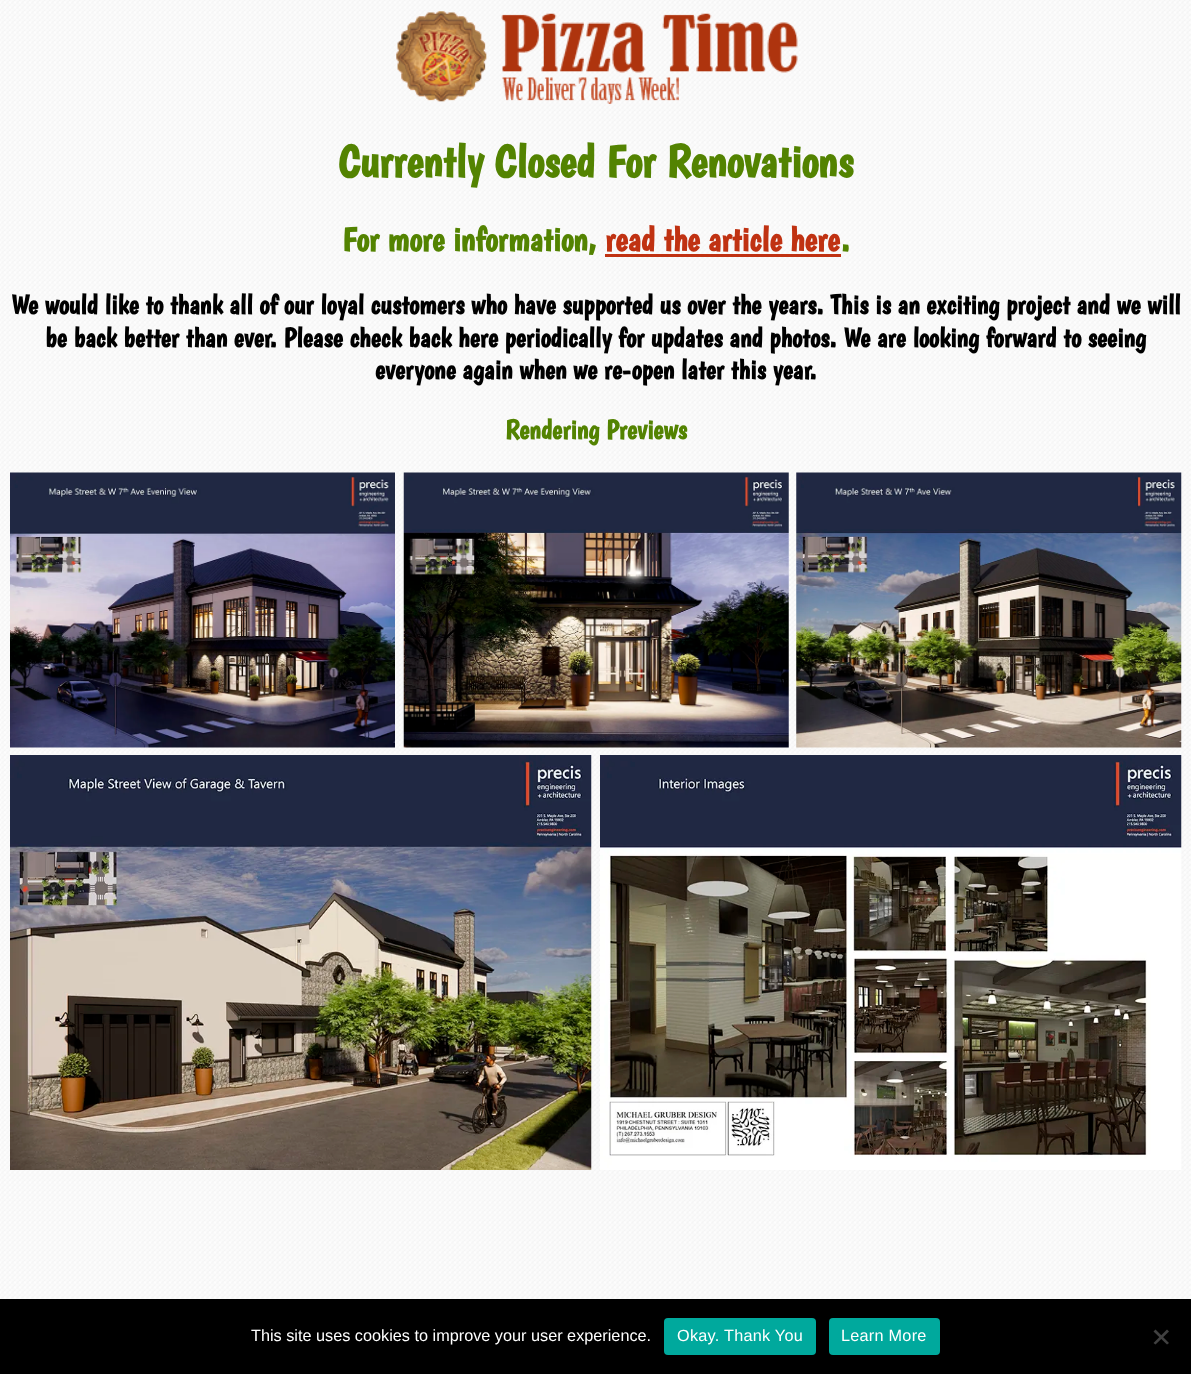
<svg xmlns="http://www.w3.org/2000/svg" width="1191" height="1374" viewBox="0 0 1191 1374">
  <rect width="100%" height="100%" fill="#ffffff"/>
  <image x="0" y="0" width="1191" height="1299" href="img1.png"/>
  <image x="396" y="11" width="402" height="93" href="img2.png"/>
  <text x="338" y="177" font-family="Boogaloo" font-size="45.5" font-weight="bold" fill="#538301">Currently Closed For Renovations</text>
  <text x="342" y="251" font-family="Boogaloo" font-size="34" font-weight="bold" fill="#538301">For more information,</text>
  <text x="605" y="251" font-family="Boogaloo" font-size="34" font-weight="bold" fill="#c03212">read the article here</text>
  <text x="841" y="251" font-family="Boogaloo" font-size="34" font-weight="bold" fill="#538301">.</text>
  <rect x="605" y="254" width="236" height="3" fill="#c03212"/>
  <text x="11" y="314" font-family="Boogaloo" font-size="27.3" font-weight="bold" fill="#000000">We would like to thank all of our loyal customers who have supported us over the years. This is an exciting project and we will</text>
  <text x="45" y="347" font-family="Boogaloo" font-size="27.3" font-weight="bold" fill="#000000">be back better than ever. Please check back here periodically for updates and photos. We are looking forward to seeing</text>
  <text x="375" y="379" font-family="Boogaloo" font-size="27.3" font-weight="bold" fill="#000000">everyone again when we re-open later this year.</text>
  <text x="505" y="439" font-family="Boogaloo" font-size="27.3" font-weight="bold" fill="#538301">Rendering Previews</text>
  <image x="10" y="472" width="385" height="276" href="img3.png"/>
  <image x="403" y="472" width="386" height="276" href="img4.png"/>
  <image x="796" y="472" width="386" height="276" href="img5.png"/>
  <image x="10" y="755" width="582" height="415" href="img6.png"/>
  <image x="600" y="755" width="582" height="415" href="img7.png"/>
  <rect x="0" y="1299" width="1191" height="75" fill="#000000"/>
  <text x="251" y="1341" font-family="Liberation Sans" font-size="16.25" fill="#ffffff">This site uses cookies to improve your user experience.</text>
  <rect x="664" y="1318" width="152" height="37" rx="4" fill="#00a99d"/>
  <text x="677" y="1341" font-family="Liberation Sans" font-size="16.25" letter-spacing="0.25" fill="#ffffff">Okay. Thank You</text>
  <rect x="829" y="1318" width="111" height="37" rx="4" fill="#00a99d"/>
  <text x="841" y="1341" font-family="Liberation Sans" font-size="16.25" letter-spacing="0.25" fill="#ffffff">Learn More</text>
  <path d="M1167 1329.5L1169 1331.5L1155.5 1344.5L1153.5 1343Z" fill="#404040"/>
  <path d="M1153.5 1331.5L1155.5 1329.5L1169 1343L1167 1344.5Z" fill="#404040"/>
</svg>
